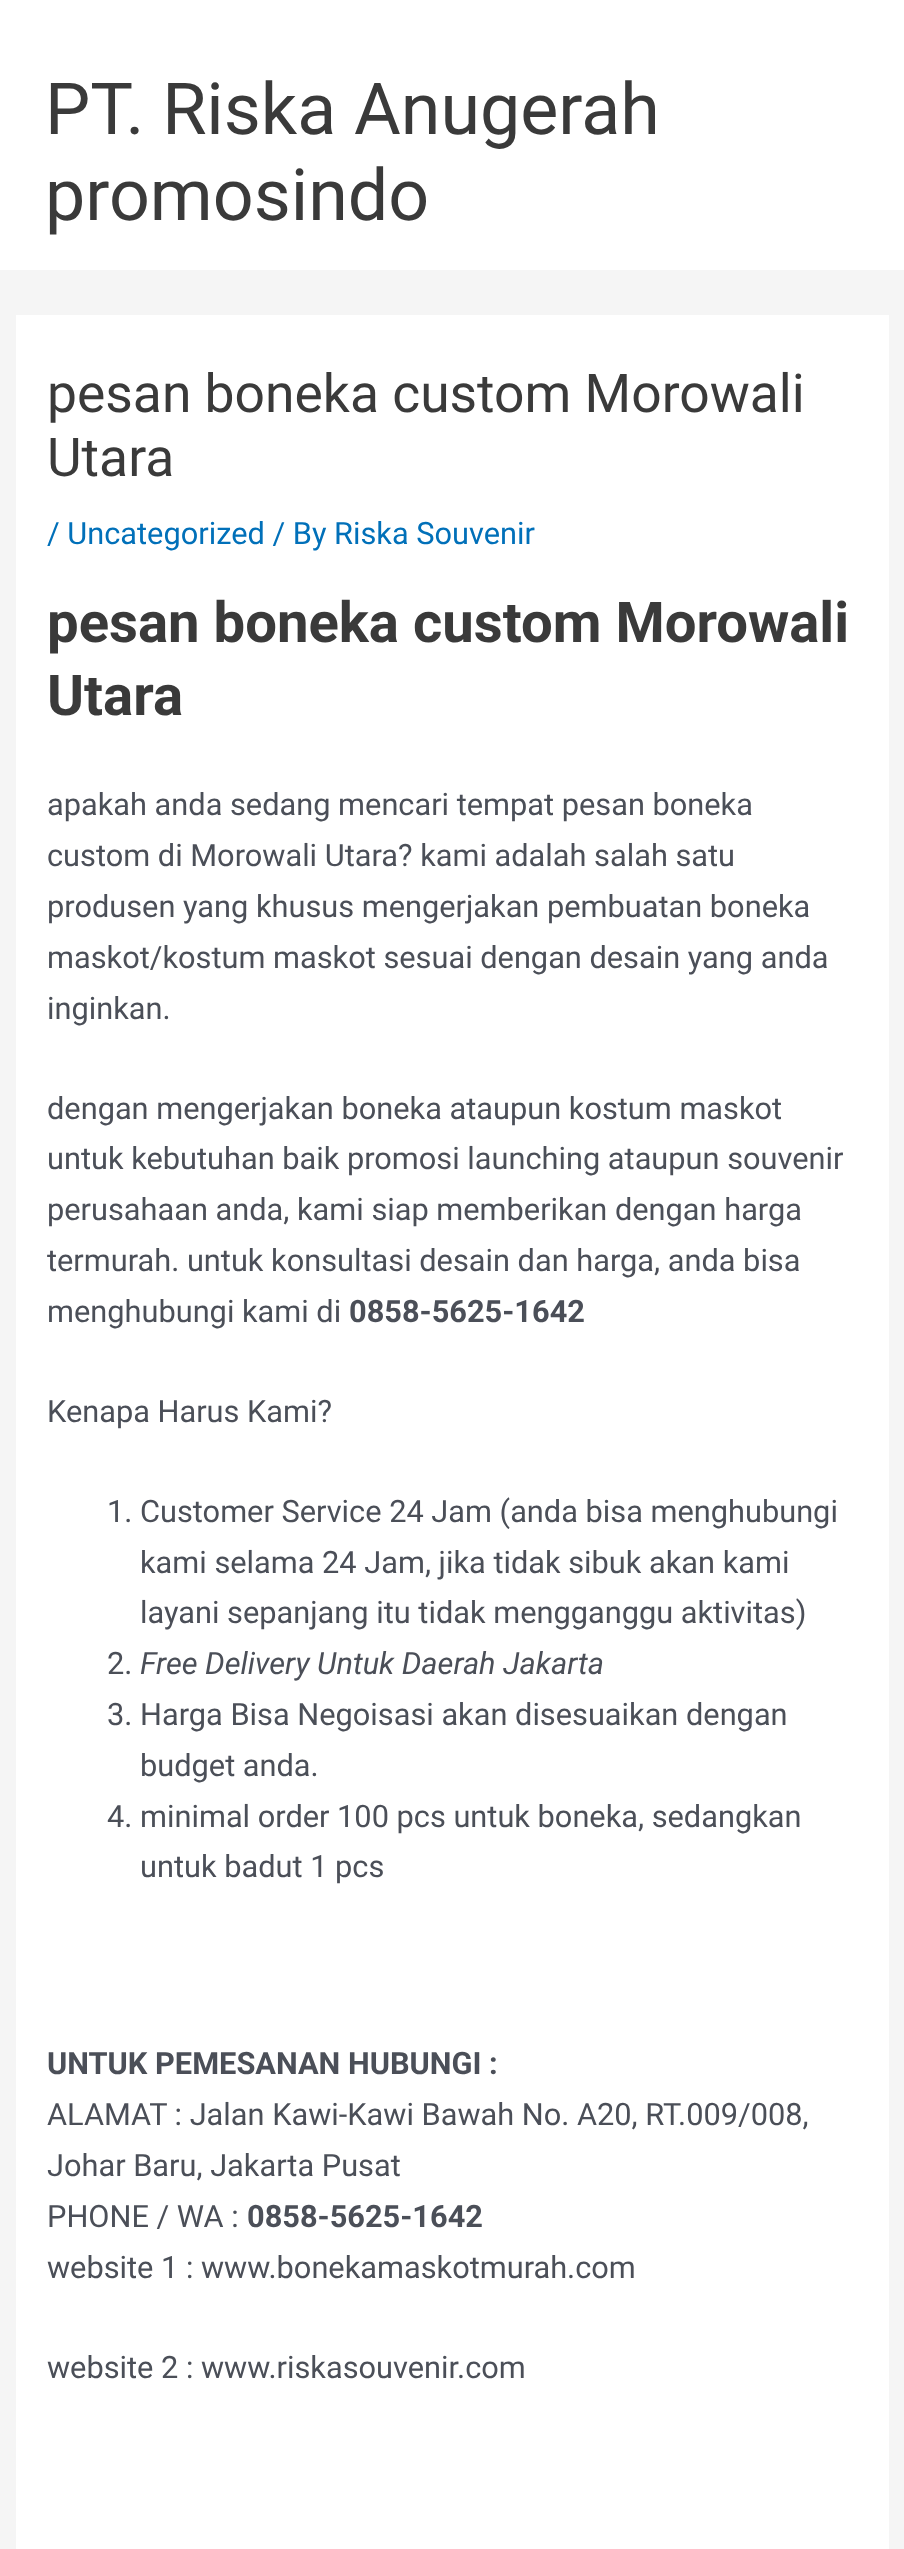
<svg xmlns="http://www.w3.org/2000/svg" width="904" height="2549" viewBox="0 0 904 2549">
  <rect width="100%" height="100%" fill="#f5f5f5"/>
  <rect x="0" y="0" width="904" height="270" fill="#ffffff"/>
  <text x="45" y="134" font-family="Roboto" font-size="71.75" fill="#3a3a3a">PT. Riska Anugerah</text>
  <text x="45" y="220" font-family="Roboto" font-size="71.75" fill="#3a3a3a">promosindo</text>
  <rect x="16" y="315" width="873" height="2234" fill="#ffffff"/>
  <text x="47" y="412" font-family="Roboto" font-size="53.4" fill="#3a3a3a">pesan boneka custom Morowali</text>
  <text x="47" y="476" font-family="Roboto" font-size="53.4" fill="#3a3a3a">Utara</text>
  <text x="47" y="544" font-family="Roboto" font-size="30.75" fill="#0170b9">/ Uncategorized / By Riska Souvenir</text>
  <text x="47" y="642" font-family="Roboto" font-size="56.25" font-weight="bold" fill="#3a3a3a">pesan boneka custom Morowali</text>
  <text x="47" y="715" font-family="Roboto" font-size="56.25" font-weight="bold" fill="#3a3a3a">Utara</text>
  <text x="47" y="815" font-family="Roboto" font-size="30.75" fill="#4b4f58">apakah anda sedang mencari tempat pesan boneka</text>
  <text x="47" y="866" font-family="Roboto" font-size="30.75" fill="#4b4f58">custom di Morowali Utara? kami adalah salah satu</text>
  <text x="47" y="917" font-family="Roboto" font-size="30.75" fill="#4b4f58">produsen yang khusus mengerjakan pembuatan boneka</text>
  <text x="47" y="968" font-family="Roboto" font-size="30.75" fill="#4b4f58">maskot/kostum maskot sesuai dengan desain yang anda</text>
  <text x="47" y="1019" font-family="Roboto" font-size="30.75" fill="#4b4f58">inginkan.</text>
  <text x="47" y="1119" font-family="Roboto" font-size="30.75" fill="#4b4f58">dengan mengerjakan boneka ataupun kostum maskot</text>
  <text x="47" y="1169" font-family="Roboto" font-size="30.75" fill="#4b4f58">untuk kebutuhan baik promosi launching ataupun souvenir</text>
  <text x="47" y="1220" font-family="Roboto" font-size="30.75" fill="#4b4f58">perusahaan anda, kami siap memberikan dengan harga</text>
  <text x="47" y="1271" font-family="Roboto" font-size="30.75" fill="#4b4f58">termurah. untuk konsultasi desain dan harga, anda bisa</text>
  <text x="47" y="1322" font-family="Roboto" font-size="30.75" fill="#4b4f58">menghubungi kami di</text>
  <text x="349" y="1322" font-family="Roboto" font-size="30.75" font-weight="bold" fill="#4b4f58">0858-5625-1642</text>
  <text x="47" y="1422" font-family="Roboto" font-size="30.75" fill="#4b4f58">Kenapa Harus Kami?</text>
  <text x="107" y="1522" font-family="Roboto" font-size="30.75" fill="#4b4f58">1. Customer Service 24 Jam (anda bisa menghubungi</text>
  <text x="140" y="1573" font-family="Roboto" font-size="30.75" fill="#4b4f58">kami selama 24 Jam, jika tidak sibuk akan kami</text>
  <text x="140" y="1623" font-family="Roboto" font-size="30.75" fill="#4b4f58">layani sepanjang itu tidak mengganggu aktivitas)</text>
  <text x="107" y="1674" font-family="Roboto" font-size="30.75" fill="#4b4f58">2.</text>
  <text x="140" y="1674" font-family="Roboto" font-size="30.75" font-style="italic" fill="#4b4f58">Free Delivery Untuk Daerah Jakarta</text>
  <text x="107" y="1725" font-family="Roboto" font-size="30.75" fill="#4b4f58">3. Harga Bisa Negoisasi akan disesuaikan dengan</text>
  <text x="140" y="1776" font-family="Roboto" font-size="30.75" fill="#4b4f58">budget anda.</text>
  <text x="107" y="1827" font-family="Roboto" font-size="30.75" fill="#4b4f58">4. minimal order 100 pcs untuk boneka, sedangkan</text>
  <text x="140" y="1877" font-family="Roboto" font-size="30.75" fill="#4b4f58">untuk badut 1 pcs</text>
  <text x="47" y="2074" font-family="Roboto" font-size="30.75" font-weight="bold" fill="#4b4f58">UNTUK PEMESANAN HUBUNGI :</text>
  <text x="47" y="2125" font-family="Roboto" font-size="30.75" fill="#4b4f58">ALAMAT : Jalan Kawi-Kawi Bawah No. A20, RT.009/008,</text>
  <text x="47" y="2176" font-family="Roboto" font-size="30.75" fill="#4b4f58">Johar Baru, Jakarta Pusat</text>
  <text x="47" y="2227" font-family="Roboto" font-size="30.75" fill="#4b4f58">PHONE / WA :</text>
  <text x="247" y="2227" font-family="Roboto" font-size="30.75" font-weight="bold" fill="#4b4f58">0858-5625-1642</text>
  <text x="47" y="2278" font-family="Roboto" font-size="30.75" fill="#4b4f58">website 1 : www.bonekamaskotmurah.com</text>
  <text x="47" y="2378" font-family="Roboto" font-size="30.75" fill="#4b4f58">website 2 : www.riskasouvenir.com</text>
</svg>
